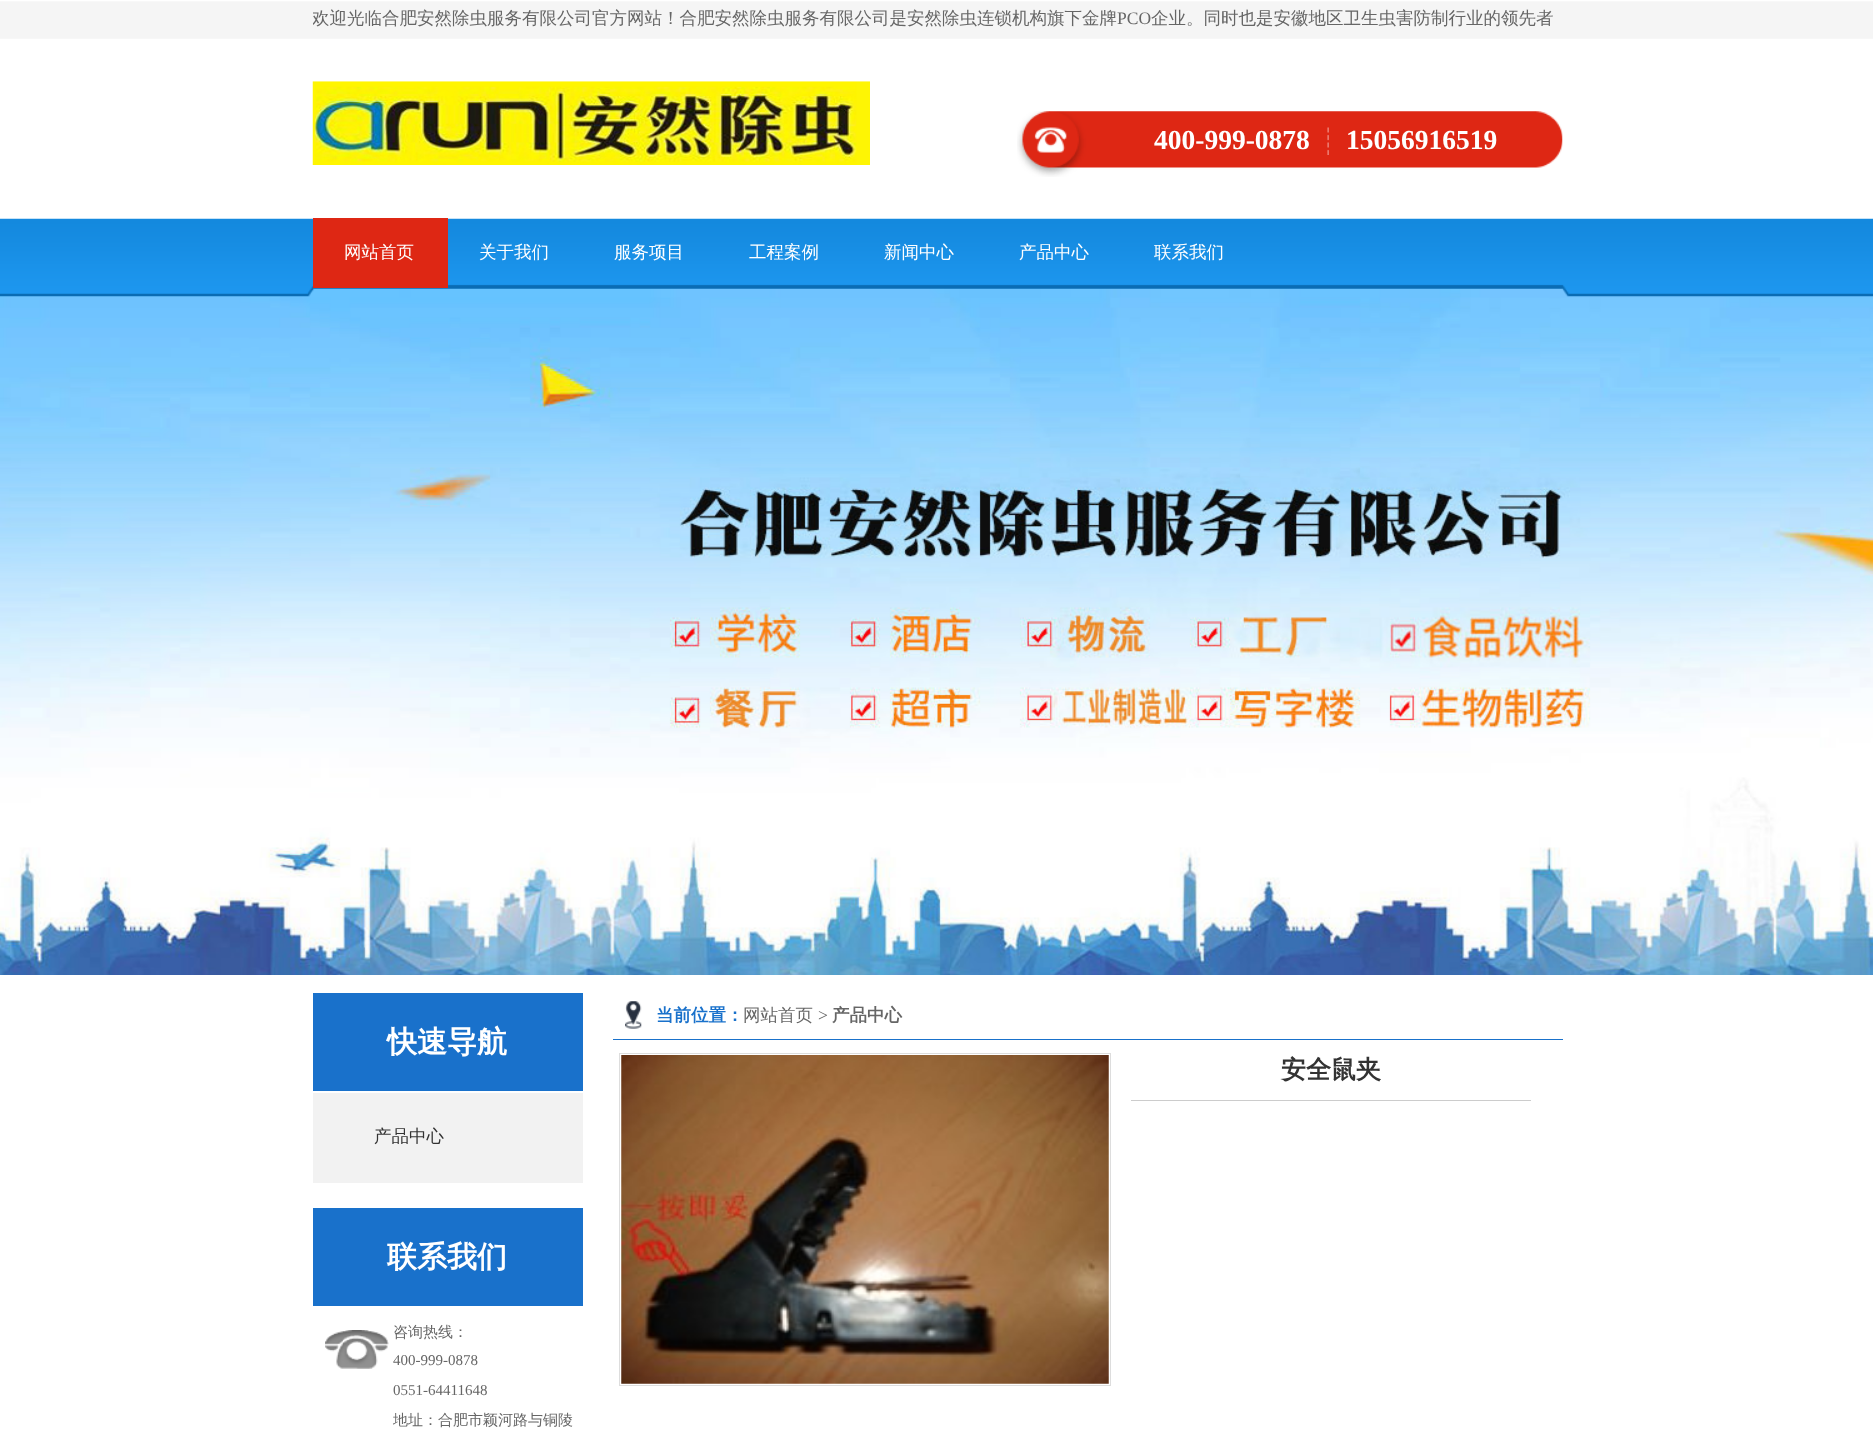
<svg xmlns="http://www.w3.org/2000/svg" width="1873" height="1445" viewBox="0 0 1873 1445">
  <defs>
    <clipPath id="clip1"><rect x="313" y="0" width="1250" height="38"/></clipPath>
  </defs>
  <rect width="100%" height="100%" fill="#ffffff"/>
  <image x="0" y="288" width="1873" height="687" href="img5.png"/>
  <image x="0" y="1" width="1873" height="296" href="img1.png"/>
  <g clip-path="url(#clip1)">
    <text x="312" y="24" font-family="WenQuanYi Zen Hei" font-size="17.5" font-weight="500" fill="#666666">欢迎光临合肥安然除虫服务有限公司官方网站！合肥安然除虫服务有限公司是安然除虫连锁机构旗下金牌</text>
  </g>
  <text x="1117" y="24" font-family="Liberation Serif" font-size="17.5" fill="#666666">PCO</text>
  <text x="1151" y="24" font-family="WenQuanYi Zen Hei" font-size="17.5" font-weight="500" fill="#666666">企业。同时也是安徽地区卫生虫害防制行业的领先者</text>
  <image x="312" y="81" width="558" height="84" href="img2.png"/>
  <image x="1017" y="111" width="546" height="66" href="img3.png"/>
  <text x="1154" y="149" font-family="Liberation Serif" font-size="27.5" font-weight="bold" fill="#ffffff">400-999-0878</text>
  <image x="1327" y="127" width="2" height="28" href="img4.png"/>
  <text x="1346" y="149" font-family="Liberation Serif" font-size="27.5" font-weight="bold" fill="#ffffff">15056916519</text>
  <rect x="313" y="218" width="135" height="70" fill="#de2714"/>
  <text x="344" y="258" font-family="WenQuanYi Zen Hei" font-size="17.5" font-weight="500" fill="#ffffff">网站首页</text>
  <text x="479" y="258" font-family="WenQuanYi Zen Hei" font-size="17.5" font-weight="500" fill="#ffffff">关于我们</text>
  <text x="614" y="258" font-family="WenQuanYi Zen Hei" font-size="17.5" font-weight="500" fill="#ffffff">服务项目</text>
  <text x="749" y="258" font-family="WenQuanYi Zen Hei" font-size="17.5" font-weight="500" fill="#ffffff">工程案例</text>
  <text x="884" y="258" font-family="WenQuanYi Zen Hei" font-size="17.5" font-weight="500" fill="#ffffff">新闻中心</text>
  <text x="1019" y="258" font-family="WenQuanYi Zen Hei" font-size="17.5" font-weight="500" fill="#ffffff">产品中心</text>
  <text x="1154" y="258" font-family="WenQuanYi Zen Hei" font-size="17.5" font-weight="500" fill="#ffffff">联系我们</text>
  <rect x="313" y="993" width="270" height="98" fill="#1971cb"/>
  <text x="387" y="1052" font-family="WenQuanYi Zen Hei" font-size="30" font-weight="bold" fill="#ffffff">快速导航</text>
  <rect x="313" y="1093" width="270" height="90" fill="#f2f2f2"/>
  <text x="374" y="1142" font-family="WenQuanYi Zen Hei" font-size="17.5" font-weight="500" fill="#333333">产品中心</text>
  <rect x="313" y="1208" width="270" height="98" fill="#1971cb"/>
  <text x="387" y="1267" font-family="WenQuanYi Zen Hei" font-size="30" font-weight="bold" fill="#ffffff">联系我们</text>
  <image x="325" y="1330" width="64" height="39" href="img6.png"/>
  <text x="393" y="1337" font-family="WenQuanYi Zen Hei" font-size="15" font-weight="500" fill="#666666">咨询热线：</text>
  <text x="393" y="1365" font-family="Liberation Serif" font-size="15" fill="#666666">400-999-0878</text>
  <text x="393" y="1395" font-family="Liberation Serif" font-size="15" fill="#666666">0551-64411648</text>
  <text x="393" y="1425" font-family="WenQuanYi Zen Hei" font-size="15" font-weight="500" fill="#666666">地址：合肥市颖河路与铜陵</text>
  <image x="625" y="1001" width="17" height="28" href="img7.png"/>
  <rect x="613" y="1039" width="950" height="1" fill="#1971cb"/>
  <text x="656" y="1021" font-family="WenQuanYi Zen Hei" font-size="17.5" font-weight="bold" fill="#1971cb">当前位置：</text>
  <text x="743" y="1021" font-family="WenQuanYi Zen Hei" font-size="17.5" font-weight="500" fill="#666666">网站首页</text>
  <text x="818" y="1021" font-family="Liberation Serif" font-size="17.5" fill="#666666">&gt;</text>
  <text x="832" y="1021" font-family="WenQuanYi Zen Hei" font-size="17.5" font-weight="bold" fill="#666666">产品中心</text>
  <rect x="619.5" y="1053.5" width="491" height="332" fill="none" stroke="#dddddd"/>
  <image x="621" y="1055" width="488" height="329" href="img8.png"/>
  <rect x="1131" y="1100" width="400" height="1" fill="#cccccc"/>
  <text x="1281" y="1078" font-family="WenQuanYi Zen Hei" font-size="25" font-weight="bold" fill="#333333">安全鼠夹</text>
</svg>
